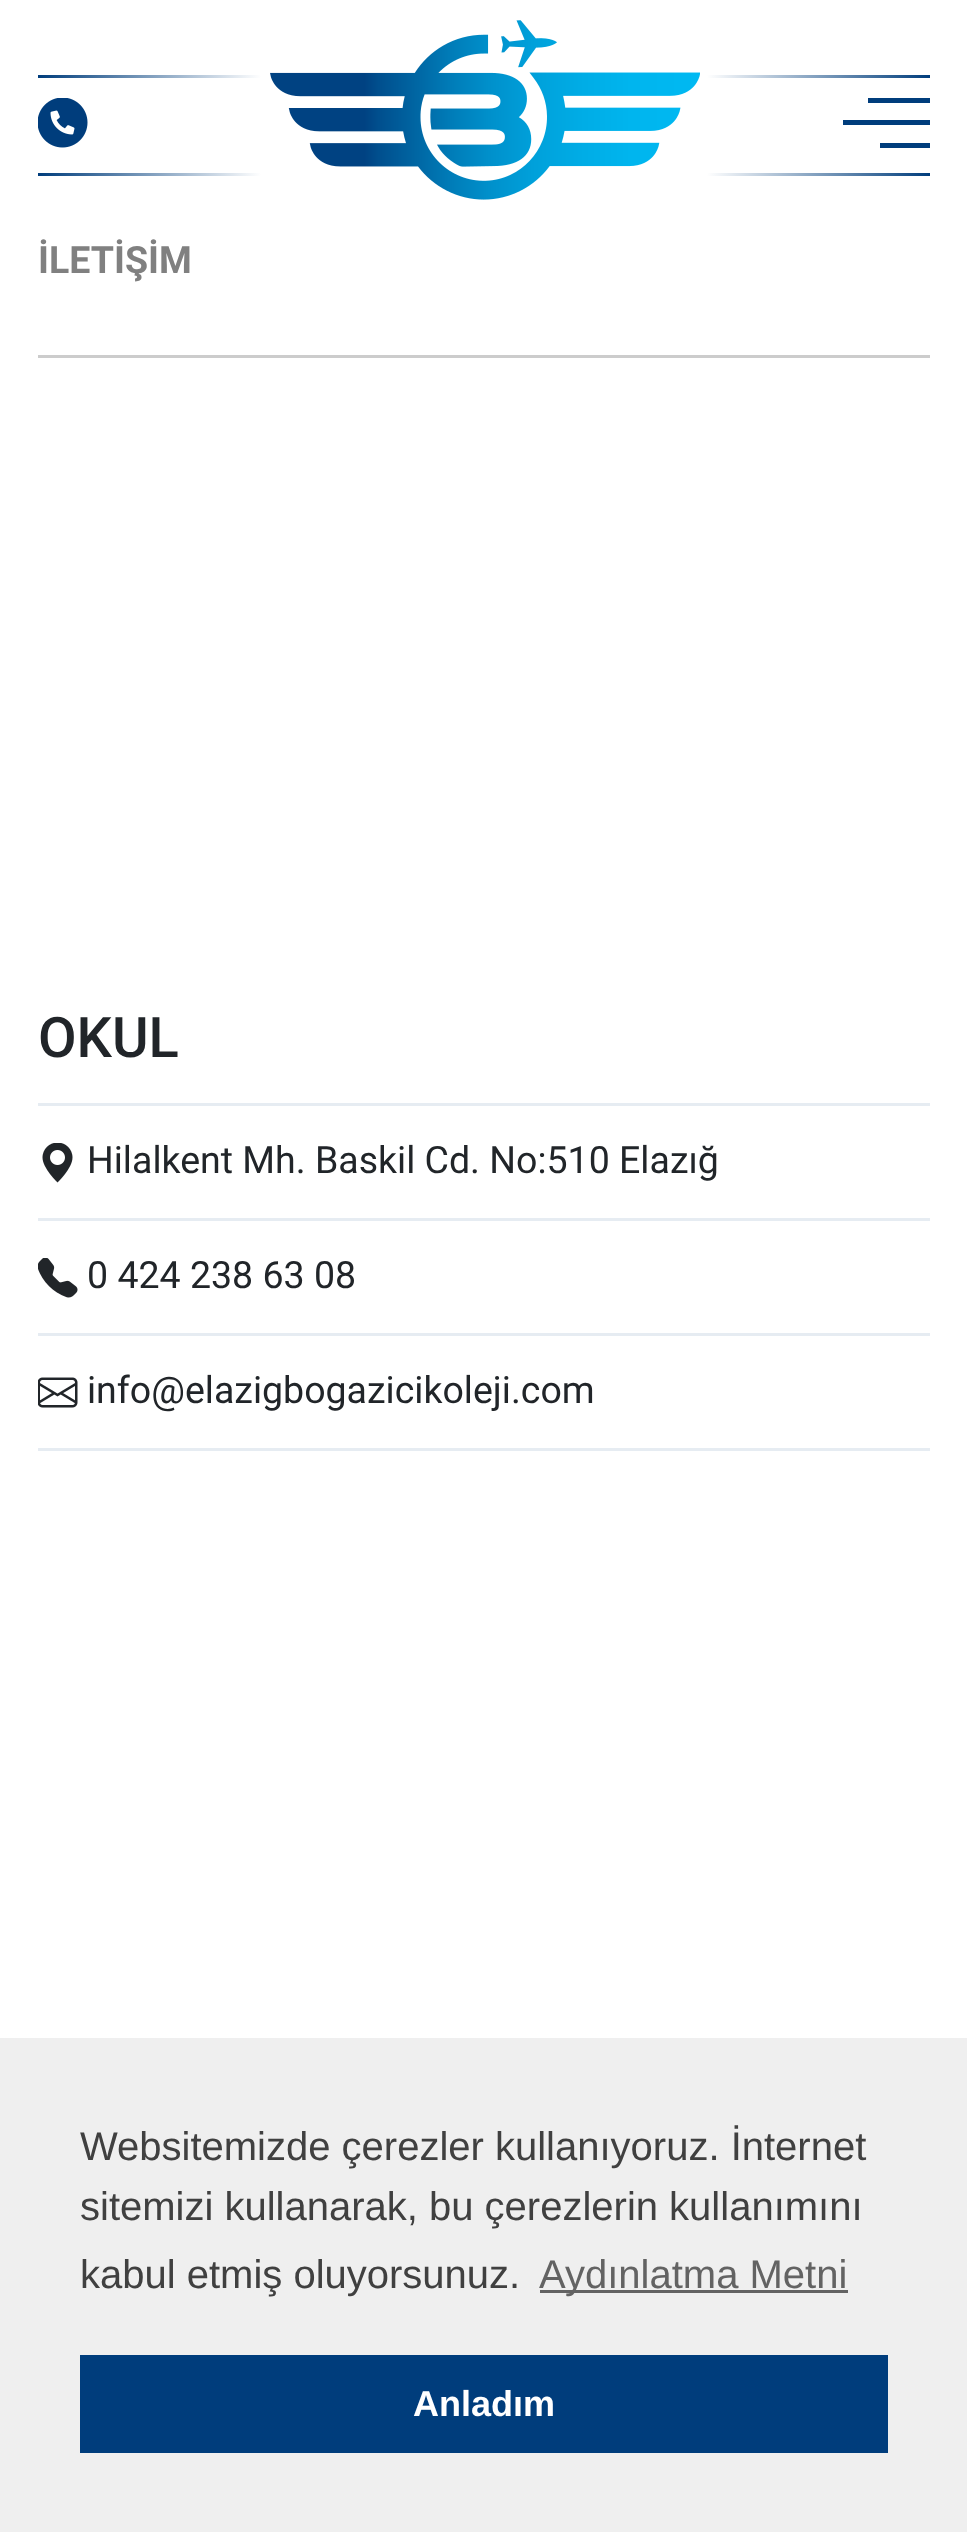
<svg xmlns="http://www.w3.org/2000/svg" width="967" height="2532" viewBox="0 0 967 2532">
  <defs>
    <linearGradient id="g1" gradientUnits="userSpaceOnUse" x1="38" y1="76" x2="930" y2="76"><stop offset="0" stop-color="#003d7c"/><stop offset="0.25" stop-color="#ffffff"/><stop offset="0.75" stop-color="#ffffff"/><stop offset="1" stop-color="#003d7c"/></linearGradient>
    <linearGradient id="g2" gradientUnits="userSpaceOnUse" x1="38" y1="174" x2="930" y2="174"><stop offset="0" stop-color="#003d7c"/><stop offset="0.25" stop-color="#ffffff"/><stop offset="0.75" stop-color="#ffffff"/><stop offset="1" stop-color="#003d7c"/></linearGradient>
  </defs>
  <rect width="100%" height="100%" fill="#ffffff"/>
  <rect x="38" y="75" width="892" height="3" fill="url(#g1)"/>
  <rect x="38" y="173" width="892" height="3" fill="url(#g2)"/>
  <image x="270" y="20" width="430" height="180" href="img1.png"/>
  <image x="38" y="98" width="50" height="50" href="img2.png"/>
  <rect x="868" y="98" width="62" height="5" fill="#003d7c"/>
  <rect x="843" y="120" width="87" height="5" fill="#003d7c"/>
  <rect x="880" y="143" width="50" height="5" fill="#003d7c"/>
  <rect x="38" y="355" width="892" height="3" fill="#cccccc"/>
  <text x="38" y="273" font-family="Roboto" font-size="37.5" font-weight="bold" fill="#808080">İLETİŞİM</text>
  <text x="38" y="1057" font-family="Roboto" font-size="56" font-weight="500" fill="#212529">OKUL</text>
  <rect x="38" y="1103" width="892" height="3" fill="#e6ecf2"/>
  <rect x="38" y="1218" width="892" height="3" fill="#e6ecf2"/>
  <image x="42" y="1143" width="31" height="40" href="img3.png"/>
  <text x="87" y="1173" font-family="Roboto" font-size="37.5" fill="#212529">Hilalkent Mh. Baskil Cd. No:510 Elazığ</text>
  <rect x="38" y="1333" width="892" height="3" fill="#e6ecf2"/>
  <image x="38" y="1258" width="40" height="40" href="img4.png"/>
  <text x="87" y="1288" font-family="Roboto" font-size="37.5" fill="#212529">0 424 238 63 08</text>
  <rect x="38" y="1448" width="892" height="3" fill="#e6ecf2"/>
  <image x="38" y="1377" width="40" height="31" href="img5.png"/>
  <text x="87" y="1403" font-family="Roboto" font-size="37.5" fill="#212529">info@elazigbogazicikoleji.com</text>
  <rect x="0" y="2038" width="967" height="494" fill="#efefef"/>
  <text x="80" y="2160" font-family="Liberation Sans" font-size="40" fill="#404040">Websitemizde çerezler kullanıyoruz. İnternet</text>
  <text x="80" y="2220" font-family="Liberation Sans" font-size="40" fill="#404040">sitemizi kullanarak, bu çerezlerin kullanımını</text>
  <text x="80" y="2288" font-family="Liberation Sans" font-size="40" fill="#404040">kabul etmiş oluyorsunuz.</text>
  <rect x="540" y="2290" width="308" height="3" fill="#636363"/>
  <text x="539" y="2288" font-family="Liberation Sans" font-size="40" fill="#636363">Aydınlatma Metni</text>
  <rect x="80" y="2355" width="808" height="98" fill="#003d7c"/>
  <text x="413" y="2416" font-family="Liberation Sans" font-size="36" font-weight="bold" fill="#ffffff">Anladım</text>
</svg>
